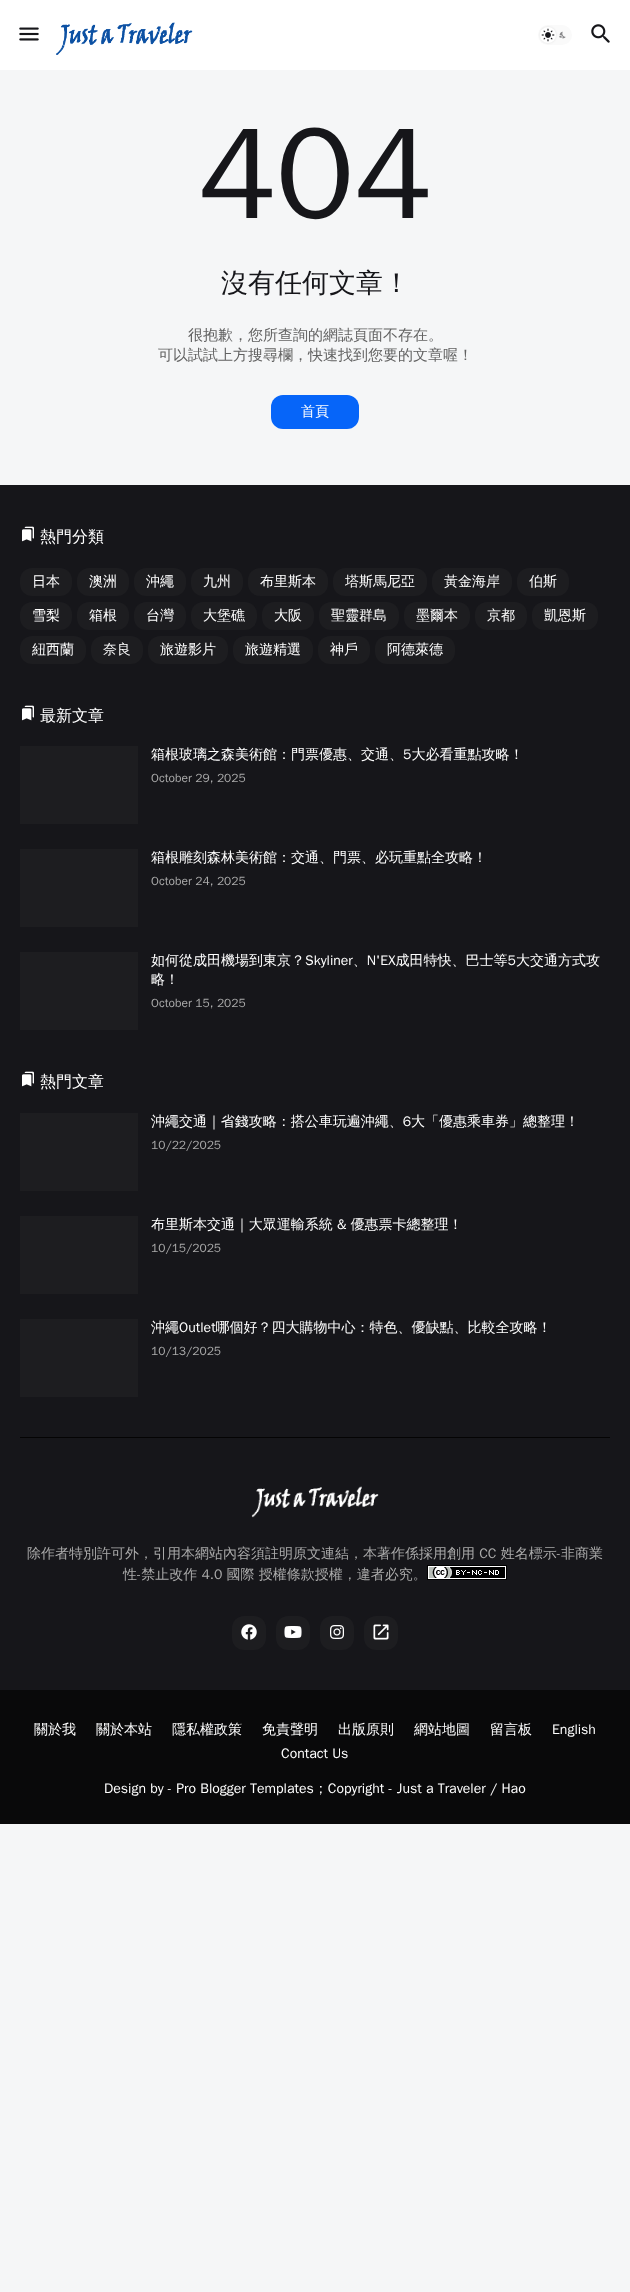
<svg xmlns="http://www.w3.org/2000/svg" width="630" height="2292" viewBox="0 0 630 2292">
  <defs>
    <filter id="blur1" x="-50%" y="-200%" width="200%" height="500%"><feGaussianBlur stdDeviation="1"/></filter>
  </defs>
  <rect width="100%" height="100%" fill="#f5f6f7"/>
  <rect x="0" y="0" width="630" height="70" fill="#ffffff"/>
  <image x="19" y="27" width="20" height="14" href="img1.png"/>
  <image x="56" y="22" width="137" height="33" href="img2.png"/>
  <rect x="538" y="25" width="34" height="20" rx="10" fill="#fafafa"/>
  <image x="559" y="31" width="7" height="8" href="img4.png"/>
  <rect x="540" y="27" width="16" height="16" rx="8" fill="#000000" fill-opacity="0.1" filter="url(#blur1)"/>
  <circle cx="548" cy="35" r="8" fill="#ffffff"/>
  <image x="541" y="28" width="14" height="14" href="img3.png"/>
  <image x="591" y="24" width="19" height="19" href="img5.png"/>
  <text x="198" y="218" font-family="WenQuanYi Zen Hei" font-size="130" font-weight="500" fill="#16161a">404</text>
  <text x="221" y="292" font-family="WenQuanYi Zen Hei" font-size="27" font-weight="500" fill="#16161a">沒有任何文章！</text>
  <text x="188" y="340" font-family="WenQuanYi Zen Hei" font-size="15" font-weight="500" fill="#626262">很抱歉，您所查詢的網誌頁面不存在。</text>
  <text x="158" y="360" font-family="WenQuanYi Zen Hei" font-size="15" font-weight="500" fill="#626262">可以試試上方搜尋欄，快速找到您要的文章喔！</text>
  <rect x="271" y="395" width="88" height="34" rx="12" fill="#0665f9"/>
  <text x="301" y="416" font-family="WenQuanYi Zen Hei" font-size="14" font-weight="500" fill="#ffffff">首頁</text>
  <rect x="0" y="485" width="630" height="1205" fill="#16161a"/>
  <rect x="20" y="1437" width="590" height="1" fill="#040404"/>
  <image x="22" y="526" width="12" height="16" href="img6.png"/>
  <text x="40" y="542" font-family="WenQuanYi Zen Hei" font-size="16" font-weight="500" fill="#ffffff">熱門分類</text>
  <rect x="20" y="568" width="52" height="28" rx="12" fill="#1d1d20"/>
  <text x="32" y="586" font-family="WenQuanYi Zen Hei" font-size="14" font-weight="500" fill="#ffffff">日本</text>
  <rect x="77" y="568" width="52" height="28" rx="12" fill="#1d1d20"/>
  <text x="89" y="586" font-family="WenQuanYi Zen Hei" font-size="14" font-weight="500" fill="#ffffff">澳洲</text>
  <rect x="134" y="568" width="52" height="28" rx="12" fill="#1d1d20"/>
  <text x="146" y="586" font-family="WenQuanYi Zen Hei" font-size="14" font-weight="500" fill="#ffffff">沖繩</text>
  <rect x="191" y="568" width="52" height="28" rx="12" fill="#1d1d20"/>
  <text x="203" y="586" font-family="WenQuanYi Zen Hei" font-size="14" font-weight="500" fill="#ffffff">九州</text>
  <rect x="248" y="568" width="80" height="28" rx="12" fill="#1d1d20"/>
  <text x="260" y="586" font-family="WenQuanYi Zen Hei" font-size="14" font-weight="500" fill="#ffffff">布里斯本</text>
  <rect x="333" y="568" width="94" height="28" rx="12" fill="#1d1d20"/>
  <text x="345" y="586" font-family="WenQuanYi Zen Hei" font-size="14" font-weight="500" fill="#ffffff">塔斯馬尼亞</text>
  <rect x="432" y="568" width="80" height="28" rx="12" fill="#1d1d20"/>
  <text x="444" y="586" font-family="WenQuanYi Zen Hei" font-size="14" font-weight="500" fill="#ffffff">黃金海岸</text>
  <rect x="517" y="568" width="52" height="28" rx="12" fill="#1d1d20"/>
  <text x="529" y="586" font-family="WenQuanYi Zen Hei" font-size="14" font-weight="500" fill="#ffffff">伯斯</text>
  <rect x="20" y="602" width="52" height="28" rx="12" fill="#1d1d20"/>
  <text x="32" y="620" font-family="WenQuanYi Zen Hei" font-size="14" font-weight="500" fill="#ffffff">雪梨</text>
  <rect x="77" y="602" width="52" height="28" rx="12" fill="#1d1d20"/>
  <text x="89" y="620" font-family="WenQuanYi Zen Hei" font-size="14" font-weight="500" fill="#ffffff">箱根</text>
  <rect x="134" y="602" width="52" height="28" rx="12" fill="#1d1d20"/>
  <text x="146" y="620" font-family="WenQuanYi Zen Hei" font-size="14" font-weight="500" fill="#ffffff">台灣</text>
  <rect x="191" y="602" width="66" height="28" rx="12" fill="#1d1d20"/>
  <text x="203" y="620" font-family="WenQuanYi Zen Hei" font-size="14" font-weight="500" fill="#ffffff">大堡礁</text>
  <rect x="262" y="602" width="52" height="28" rx="12" fill="#1d1d20"/>
  <text x="274" y="620" font-family="WenQuanYi Zen Hei" font-size="14" font-weight="500" fill="#ffffff">大阪</text>
  <rect x="319" y="602" width="80" height="28" rx="12" fill="#1d1d20"/>
  <text x="331" y="620" font-family="WenQuanYi Zen Hei" font-size="14" font-weight="500" fill="#ffffff">聖靈群島</text>
  <rect x="404" y="602" width="66" height="28" rx="12" fill="#1d1d20"/>
  <text x="416" y="620" font-family="WenQuanYi Zen Hei" font-size="14" font-weight="500" fill="#ffffff">墨爾本</text>
  <rect x="475" y="602" width="52" height="28" rx="12" fill="#1d1d20"/>
  <text x="487" y="620" font-family="WenQuanYi Zen Hei" font-size="14" font-weight="500" fill="#ffffff">京都</text>
  <rect x="532" y="602" width="66" height="28" rx="12" fill="#1d1d20"/>
  <text x="544" y="620" font-family="WenQuanYi Zen Hei" font-size="14" font-weight="500" fill="#ffffff">凱恩斯</text>
  <rect x="20" y="636" width="66" height="28" rx="12" fill="#1d1d20"/>
  <text x="32" y="654" font-family="WenQuanYi Zen Hei" font-size="14" font-weight="500" fill="#ffffff">紐西蘭</text>
  <rect x="91" y="636" width="52" height="28" rx="12" fill="#1d1d20"/>
  <text x="103" y="654" font-family="WenQuanYi Zen Hei" font-size="14" font-weight="500" fill="#ffffff">奈良</text>
  <rect x="148" y="636" width="80" height="28" rx="12" fill="#1d1d20"/>
  <text x="160" y="654" font-family="WenQuanYi Zen Hei" font-size="14" font-weight="500" fill="#ffffff">旅遊影片</text>
  <rect x="233" y="636" width="80" height="28" rx="12" fill="#1d1d20"/>
  <text x="245" y="654" font-family="WenQuanYi Zen Hei" font-size="14" font-weight="500" fill="#ffffff">旅遊精選</text>
  <rect x="318" y="636" width="52" height="28" rx="12" fill="#1d1d20"/>
  <text x="330" y="654" font-family="WenQuanYi Zen Hei" font-size="14" font-weight="500" fill="#ffffff">神戶</text>
  <rect x="375" y="636" width="80" height="28" rx="12" fill="#1d1d20"/>
  <text x="387" y="654" font-family="WenQuanYi Zen Hei" font-size="14" font-weight="500" fill="#ffffff">阿德萊德</text>
  <image x="22" y="705" width="12" height="16" href="img6.png"/>
  <text x="40" y="721" font-family="WenQuanYi Zen Hei" font-size="16" font-weight="500" fill="#ffffff">最新文章</text>
  <rect x="20" y="746" width="118" height="78" fill="#1d1d20"/>
  <text x="151" y="759" font-family="WenQuanYi Zen Hei" font-size="14" font-weight="500" fill="#ffffff">箱根玻璃之森美術館：門票優惠、交通、5大必看重點攻略！</text>
  <text x="151" y="782" font-family="WenQuanYi Zen Hei" font-size="12" font-weight="500" fill="#aaaaaa">October 29, 2025</text>
  <rect x="20" y="849" width="118" height="78" fill="#1d1d20"/>
  <text x="151" y="862" font-family="WenQuanYi Zen Hei" font-size="14" font-weight="500" fill="#ffffff">箱根雕刻森林美術館：交通、門票、必玩重點全攻略！</text>
  <text x="151" y="885" font-family="WenQuanYi Zen Hei" font-size="12" font-weight="500" fill="#aaaaaa">October 24, 2025</text>
  <rect x="20" y="952" width="118" height="78" fill="#1d1d20"/>
  <text x="151" y="965" font-family="WenQuanYi Zen Hei" font-size="14" font-weight="500" fill="#ffffff">如何從成田機場到東京？Skyliner、N'EX成田特快、巴士等5大交通方式攻</text>
  <text x="151" y="984" font-family="WenQuanYi Zen Hei" font-size="14" font-weight="500" fill="#ffffff">略！</text>
  <text x="151" y="1007" font-family="WenQuanYi Zen Hei" font-size="12" font-weight="500" fill="#aaaaaa">October 15, 2025</text>
  <image x="22" y="1071" width="12" height="16" href="img6.png"/>
  <text x="40" y="1087" font-family="WenQuanYi Zen Hei" font-size="16" font-weight="500" fill="#ffffff">熱門文章</text>
  <rect x="20" y="1113" width="118" height="78" fill="#1d1d20"/>
  <text x="151" y="1126" font-family="WenQuanYi Zen Hei" font-size="14" font-weight="500" fill="#ffffff">沖繩交通｜省錢攻略：搭公車玩遍沖繩、6大「優惠乘車券」總整理！</text>
  <text x="151" y="1149" font-family="WenQuanYi Zen Hei" font-size="12" font-weight="500" fill="#aaaaaa">10/22/2025</text>
  <rect x="20" y="1216" width="118" height="78" fill="#1d1d20"/>
  <text x="151" y="1229" font-family="WenQuanYi Zen Hei" font-size="14" font-weight="500" fill="#ffffff">布里斯本交通｜大眾運輸系統 &amp; 優惠票卡總整理！</text>
  <text x="151" y="1252" font-family="WenQuanYi Zen Hei" font-size="12" font-weight="500" fill="#aaaaaa">10/15/2025</text>
  <rect x="20" y="1319" width="118" height="78" fill="#1d1d20"/>
  <text x="151" y="1332" font-family="WenQuanYi Zen Hei" font-size="14" font-weight="500" fill="#ffffff">沖繩Outlet哪個好？四大購物中心：特色、優缺點、比較全攻略！</text>
  <text x="151" y="1355" font-family="WenQuanYi Zen Hei" font-size="12" font-weight="500" fill="#aaaaaa">10/13/2025</text>
  <image x="251" y="1486" width="128" height="32" href="img7.png"/>
  <text x="27" y="1558" font-family="WenQuanYi Zen Hei" font-size="14" font-weight="500" fill="#aaaaaa">除作者特別許可外，引用本網站內容須註明原文連結，本著作係採用創用 CC 姓名標示-非商業</text>
  <text x="123" y="1579" font-family="WenQuanYi Zen Hei" font-size="14" font-weight="500" fill="#aaaaaa">性-禁止改作 4.0 國際 授權條款授權，違者必究。</text>
  <image x="427" y="1565" width="80" height="15" href="img8.png"/>
  <rect x="232" y="1616" width="34" height="34" rx="12" fill="#1d1d20"/>
  <image x="241" y="1624" width="16" height="16" href="img9.png"/>
  <rect x="276" y="1616" width="34" height="34" rx="12" fill="#1d1d20"/>
  <image x="284" y="1626" width="18" height="12" href="img10.png"/>
  <rect x="320" y="1616" width="34" height="34" rx="12" fill="#1d1d20"/>
  <image x="330" y="1625" width="14" height="14" href="img11.png"/>
  <rect x="364" y="1616" width="34" height="34" rx="12" fill="#1d1d20"/>
  <image x="373" y="1624" width="16" height="16" href="img12.png"/>
  <rect x="0" y="1690" width="630" height="134" fill="#09090a"/>
  <text x="34" y="1734" font-family="WenQuanYi Zen Hei" font-size="14" font-weight="500" fill="#ffffff">關於我</text>
  <text x="96" y="1734" font-family="WenQuanYi Zen Hei" font-size="14" font-weight="500" fill="#ffffff">關於本站</text>
  <text x="172" y="1734" font-family="WenQuanYi Zen Hei" font-size="14" font-weight="500" fill="#ffffff">隱私權政策</text>
  <text x="262" y="1734" font-family="WenQuanYi Zen Hei" font-size="14" font-weight="500" fill="#ffffff">免責聲明</text>
  <text x="338" y="1734" font-family="WenQuanYi Zen Hei" font-size="14" font-weight="500" fill="#ffffff">出版原則</text>
  <text x="414" y="1734" font-family="WenQuanYi Zen Hei" font-size="14" font-weight="500" fill="#ffffff">網站地圖</text>
  <text x="490" y="1734" font-family="WenQuanYi Zen Hei" font-size="14" font-weight="500" fill="#ffffff">留言板</text>
  <text x="552" y="1734" font-family="WenQuanYi Zen Hei" font-size="14" font-weight="500" fill="#ffffff">English</text>
  <text x="281" y="1758" font-family="WenQuanYi Zen Hei" font-size="14" font-weight="500" fill="#ffffff">Contact Us</text>
  <text x="104" y="1793" font-family="WenQuanYi Zen Hei" font-size="14" font-weight="500" fill="#ffffff">Design by - Pro Blogger Templates；Copyright - Just a Traveler / Hao</text>
</svg>
